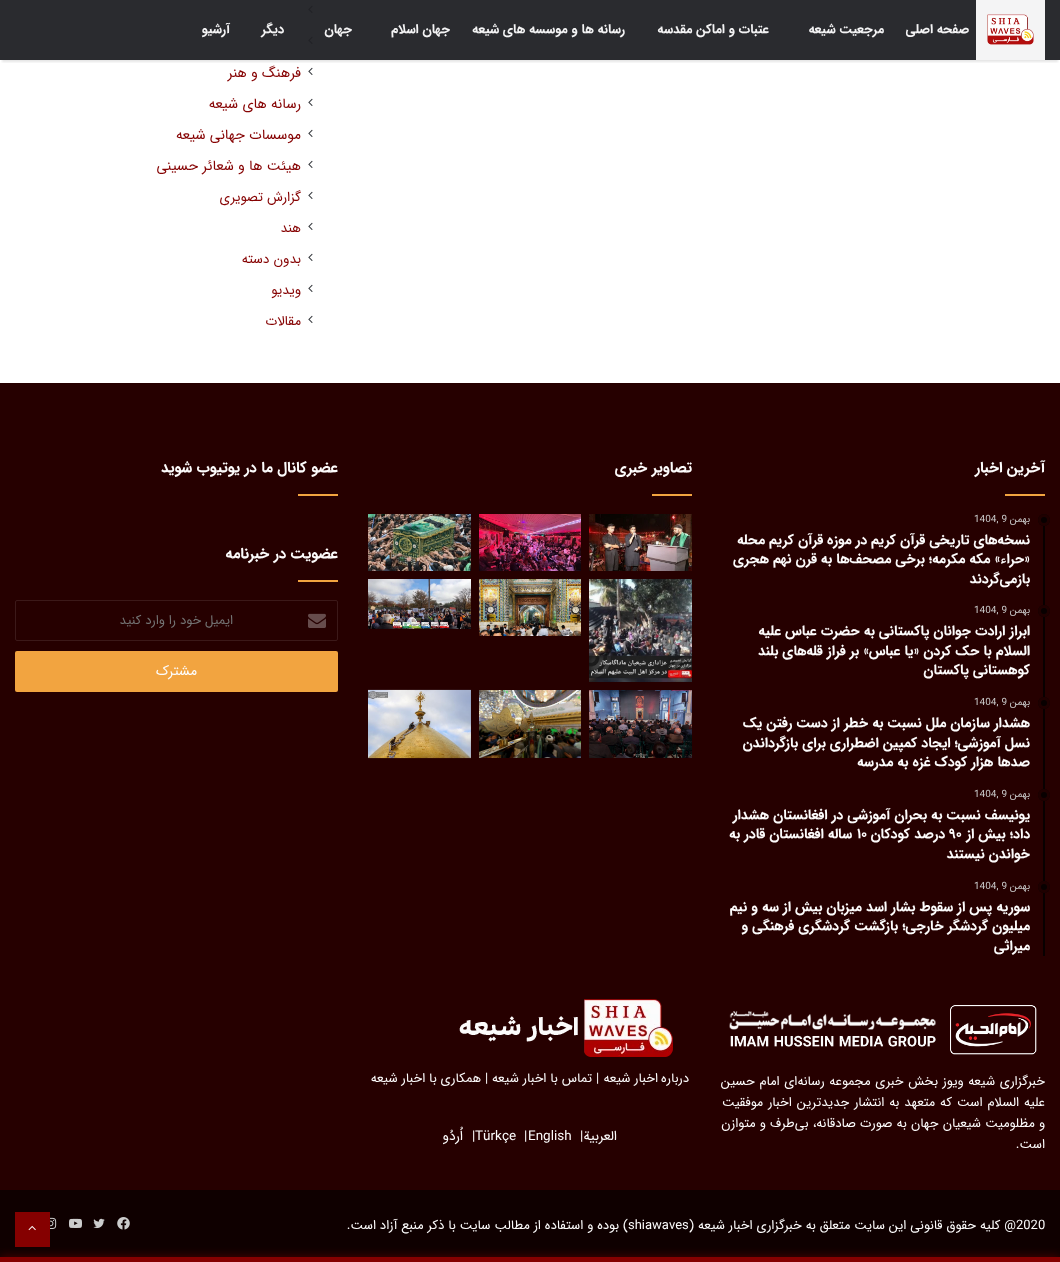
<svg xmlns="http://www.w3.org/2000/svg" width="1060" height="1262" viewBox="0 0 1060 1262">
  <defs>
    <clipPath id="clip1"><rect x="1" y="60" width="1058" height="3"/></clipPath>
    <filter id="blur1" x="-50%" y="-200%" width="200%" height="500%"><feGaussianBlur stdDeviation="1"/></filter>
    <filter id="blur2" x="-50%" y="-200%" width="200%" height="500%"><feGaussianBlur stdDeviation="5"/></filter>
  </defs>
  <rect width="100%" height="100%" fill="#ffffff"/>
  <rect x="0" y="0" width="1060" height="60" fill="#2a2b2f"/>
  <image x="308" y="5" width="5" height="8" href="img2.png"/>
  <image x="308" y="36" width="5" height="8" href="img2.png"/>
  <g clip-path="url(#clip1)">
    <rect x="2" y="6" width="1056" height="56" fill="#000000" fill-opacity="0.1" filter="url(#blur1)"/>
  </g>
  <rect x="976" y="0" width="69" height="60" fill="#f4f4f5"/>
  <image x="987" y="14" width="47" height="31" href="img1.png"/>
  <text x="969" y="33" font-family="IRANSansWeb" font-size="13" font-weight="bold" direction="rtl" fill="#f4f4f5">صفحه اصلی</text>
  <text x="884" y="33" font-family="IRANSansWeb" font-size="13" font-weight="bold" direction="rtl" fill="#f4f4f5">مرجعیت شیعه</text>
  <text x="769" y="33" font-family="IRANSansWeb" font-size="13" font-weight="bold" direction="rtl" fill="#f4f4f5">عتبات و اماکن مقدسه</text>
  <text x="625" y="33" font-family="IRANSansWeb" font-size="13" font-weight="bold" direction="rtl" fill="#f4f4f5">رسانه ها و موسسه های شیعه</text>
  <text x="450" y="33" font-family="IRANSansWeb" font-size="13" font-weight="bold" direction="rtl" fill="#f4f4f5">جهان اسلام</text>
  <text x="352" y="33" font-family="IRANSansWeb" font-size="13" font-weight="bold" direction="rtl" fill="#f4f4f5">جهان</text>
  <text x="284" y="33" font-family="IRANSansWeb" font-size="13" font-weight="bold" direction="rtl" fill="#f4f4f5">دیگر</text>
  <text x="230" y="33" font-family="IRANSansWeb" font-size="13" font-weight="bold" direction="rtl" fill="#f4f4f5">آرشیو</text>
  <image x="308" y="67" width="5" height="8" href="img3.png"/>
  <text x="301" y="77" font-family="IRANSansWeb" font-size="14.25" direction="rtl" fill="#860303">فرهنگ و هنر</text>
  <image x="308" y="98" width="5" height="8" href="img3.png"/>
  <text x="301" y="108" font-family="IRANSansWeb" font-size="14.25" direction="rtl" fill="#860303">رسانه های شیعه</text>
  <image x="308" y="129" width="5" height="8" href="img3.png"/>
  <text x="301" y="139" font-family="IRANSansWeb" font-size="14.25" direction="rtl" fill="#860303">موسسات جهانی شیعه</text>
  <image x="308" y="160" width="5" height="8" href="img3.png"/>
  <text x="301" y="170" font-family="IRANSansWeb" font-size="14.25" direction="rtl" fill="#860303">هيئت ها و شعائر حسينى</text>
  <image x="308" y="191" width="5" height="8" href="img3.png"/>
  <text x="301" y="201" font-family="IRANSansWeb" font-size="13.5" direction="rtl" fill="#860303">گزارش تصویری</text>
  <image x="308" y="222" width="5" height="8" href="img3.png"/>
  <text x="301" y="232" font-family="IRANSansWeb" font-size="13.5" direction="rtl" fill="#860303">هند</text>
  <image x="308" y="253" width="5" height="8" href="img3.png"/>
  <text x="301" y="263" font-family="IRANSansWeb" font-size="13.5" direction="rtl" fill="#860303">بدون دسته</text>
  <image x="308" y="284" width="5" height="8" href="img3.png"/>
  <text x="301" y="294" font-family="IRANSansWeb" font-size="13.5" direction="rtl" fill="#860303">ویدیو</text>
  <image x="308" y="315" width="5" height="8" href="img3.png"/>
  <text x="301" y="325" font-family="IRANSansWeb" font-size="13.5" direction="rtl" fill="#860303">مقالات</text>
  <rect x="0" y="383" width="1060" height="807" fill="#260000"/>
  <text x="1045" y="472" font-family="IRANSansWeb" font-size="15" font-weight="bold" direction="rtl" fill="#fdfcfc">آخرین اخبار</text>
  <rect x="1005" y="494" width="40" height="2" fill="#f2a440"/>
  <rect x="1043" y="514" width="2" height="442" fill="#080000"/>
  <circle cx="1044" cy="520" r="6" fill="#080000"/>
  <circle cx="1044" cy="520" r="4.5" fill="none" stroke="#260000" stroke-opacity="0.8" stroke-width="3"/>
  <text x="1030" y="522" font-family="IRANSansWeb" font-size="10" direction="rtl" fill="#cacaca">بهمن</text>
  <text x="974" y="522" font-family="IRANSansWeb" font-size="10" fill="#cacaca">1404, 9</text>
  <text x="1030" y="544" font-family="IRANSansWeb" font-size="14" font-weight="bold" direction="rtl" fill="#fdfcfc">نسخه‌های تاریخی قرآن کریم در موزه قرآن کریم محله</text>
  <text x="1030" y="563" font-family="IRANSansWeb" font-size="14" font-weight="bold" direction="rtl" fill="#fdfcfc">«حراء» مکه مکرمه؛ برخی مصحف‌ها به قرن نهم هجری</text>
  <text x="1030" y="583" font-family="IRANSansWeb" font-size="14" font-weight="bold" direction="rtl" fill="#fdfcfc">بازمی‌گردند</text>
  <circle cx="1044" cy="611" r="6" fill="#080000"/>
  <circle cx="1044" cy="611" r="4.5" fill="none" stroke="#260000" stroke-opacity="0.8" stroke-width="3"/>
  <text x="1030" y="613" font-family="IRANSansWeb" font-size="10" direction="rtl" fill="#cacaca">بهمن</text>
  <text x="974" y="613" font-family="IRANSansWeb" font-size="10" fill="#cacaca">1404, 9</text>
  <text x="1030" y="635" font-family="IRANSansWeb" font-size="14" font-weight="bold" direction="rtl" fill="#fdfcfc">ابراز ارادت جوانان پاکستانی به حضرت عباس علیه</text>
  <text x="1030" y="655" font-family="IRANSansWeb" font-size="14" font-weight="bold" direction="rtl" fill="#fdfcfc">السلام با حک کردن «یا عباس» بر فراز قله‌های بلند</text>
  <text x="1030" y="674" font-family="IRANSansWeb" font-size="14" font-weight="bold" direction="rtl" fill="#fdfcfc">کوهستانی پاکستان</text>
  <circle cx="1044" cy="703" r="6" fill="#080000"/>
  <circle cx="1044" cy="703" r="4.5" fill="none" stroke="#260000" stroke-opacity="0.8" stroke-width="3"/>
  <text x="1030" y="705" font-family="IRANSansWeb" font-size="10" direction="rtl" fill="#cacaca">بهمن</text>
  <text x="974" y="705" font-family="IRANSansWeb" font-size="10" fill="#cacaca">1404, 9</text>
  <text x="1030" y="727" font-family="IRANSansWeb" font-size="14" font-weight="bold" direction="rtl" fill="#fdfcfc">هشدار سازمان ملل نسبت به خطر از دست رفتن یک</text>
  <text x="1030" y="747" font-family="IRANSansWeb" font-size="14" font-weight="bold" direction="rtl" fill="#fdfcfc">نسل آموزشی؛ ایجاد کمپین اضطراری برای بازگرداندن</text>
  <text x="1030" y="766" font-family="IRANSansWeb" font-size="14" font-weight="bold" direction="rtl" fill="#fdfcfc">صدها هزار کودک غزه به مدرسه</text>
  <circle cx="1044" cy="795" r="6" fill="#080000"/>
  <circle cx="1044" cy="795" r="4.5" fill="none" stroke="#260000" stroke-opacity="0.8" stroke-width="3"/>
  <text x="1030" y="797" font-family="IRANSansWeb" font-size="10" direction="rtl" fill="#cacaca">بهمن</text>
  <text x="974" y="797" font-family="IRANSansWeb" font-size="10" fill="#cacaca">1404, 9</text>
  <text x="1030" y="819" font-family="IRANSansWeb" font-size="14" font-weight="bold" direction="rtl" fill="#fdfcfc">یونیسف نسبت به بحران آموزشی در افغانستان هشدار</text>
  <text x="1030" y="838" font-family="IRANSansWeb" font-size="14" font-weight="bold" direction="rtl" fill="#fdfcfc">داد؛ بیش از</text>
  <text x="949" y="838" font-family="IRANSansWeb" font-size="14" font-weight="bold" fill="#fdfcfc">۹۰</text>
  <text x="945" y="838" font-family="IRANSansWeb" font-size="14" font-weight="bold" direction="rtl" fill="#fdfcfc">درصد کودکان</text>
  <text x="857" y="838" font-family="IRANSansWeb" font-size="14" font-weight="bold" fill="#fdfcfc">۱۰</text>
  <text x="852" y="838" font-family="IRANSansWeb" font-size="14" font-weight="bold" direction="rtl" fill="#fdfcfc">ساله افغانستان قادر به</text>
  <text x="1030" y="858" font-family="IRANSansWeb" font-size="14" font-weight="bold" direction="rtl" fill="#fdfcfc">خواندن نیستند</text>
  <circle cx="1044" cy="887" r="6" fill="#080000"/>
  <circle cx="1044" cy="887" r="4.5" fill="none" stroke="#260000" stroke-opacity="0.8" stroke-width="3"/>
  <text x="1030" y="889" font-family="IRANSansWeb" font-size="10" direction="rtl" fill="#cacaca">بهمن</text>
  <text x="974" y="889" font-family="IRANSansWeb" font-size="10" fill="#cacaca">1404, 9</text>
  <text x="1030" y="911" font-family="IRANSansWeb" font-size="14" font-weight="bold" direction="rtl" fill="#fdfcfc">سوریه پس از سقوط بشار اسد میزبان بیش از سه و نیم</text>
  <text x="1030" y="930" font-family="IRANSansWeb" font-size="14" font-weight="bold" direction="rtl" fill="#fdfcfc">میلیون گردشگر خارجی؛ بازگشت گردشگری فرهنگی و</text>
  <text x="1030" y="950" font-family="IRANSansWeb" font-size="14" font-weight="bold" direction="rtl" fill="#fdfcfc">میراثی</text>
  <text x="692" y="472" font-family="IRANSansWeb" font-size="15" font-weight="bold" direction="rtl" fill="#fdfcfc">تصاویر خبری</text>
  <rect x="652" y="494" width="40" height="2" fill="#f2a440"/>
  <image x="589" y="514" width="103" height="57" href="img4.png"/>
  <image x="479" y="514" width="102" height="57" href="img5.png"/>
  <image x="368" y="514" width="103" height="57" href="img6.png"/>
  <image x="589" y="579" width="103" height="103" href="img7.png"/>
  <image x="479" y="579" width="102" height="57" href="img8.png"/>
  <image x="368" y="579" width="103" height="50" href="img9.png"/>
  <image x="589" y="690" width="103" height="68" href="img10.png"/>
  <image x="479" y="690" width="102" height="68" href="img11.png"/>
  <image x="368" y="689" width="103" height="70" href="img12.png"/>
  <text x="338" y="472" font-family="IRANSansWeb" font-size="15" font-weight="bold" direction="rtl" fill="#fdfcfc">عضو کانال ما در یوتیوب شوید</text>
  <rect x="298" y="494" width="40" height="2" fill="#f2a440"/>
  <text x="338" y="558" font-family="IRANSansWeb" font-size="15" font-weight="bold" direction="rtl" fill="#fdfcfc">عضویت در خبرنامه</text>
  <rect x="298" y="580" width="40" height="2" fill="#f2a440"/>
  <rect x="15.5" y="600.5" width="322" height="40" rx="1.5" fill="none" stroke="#3c1919"/>
  <image x="308" y="613" width="18" height="15" href="img13.png"/>
  <text x="233" y="624" font-family="IRANSansWeb" font-size="13" direction="rtl" fill="#747474">ایمیل خود را وارد کنید</text>
  <rect x="15" y="651" width="323" height="41" rx="2" fill="#f2a440"/>
  <text x="197" y="675" font-family="IRANSansWeb" font-size="14" direction="rtl" fill="#fdfcfc">مشترک</text>
  <image x="729" y="1005" width="308" height="50" href="img14.png"/>
  <text x="1045" y="1085" word-spacing="0.75" font-family="IRANSansWeb" font-size="13" direction="rtl" fill="#fdfcfc">خبرگزارى شيعه ويوز بخش خبری مجموعه رسانه‌ای امام حسین</text>
  <text x="1045" y="1106" word-spacing="1" font-family="IRANSansWeb" font-size="13" direction="rtl" fill="#fdfcfc">علیه السلام است كه متعهد به انتشار جدیدترین اخبار موفقیت</text>
  <text x="1045" y="1127" word-spacing="0.25" font-family="IRANSansWeb" font-size="13" direction="rtl" fill="#fdfcfc">و مظلومیت شیعیان جهان به صورت صادقانه، بی‌طرف و متوازن</text>
  <text x="1045" y="1148" font-family="IRANSansWeb" font-size="13" direction="rtl" fill="#fdfcfc">است.</text>
  <image x="459" y="999" width="214" height="58" href="img15.png"/>
  <text x="689" y="1082" font-family="IRANSansWeb" font-size="13" direction="rtl" fill="#fdfcfc">درباره</text>
  <text x="658" y="1082" font-family="IRANSansWeb" font-size="13" direction="rtl" fill="#fdfcfc">اخبار شیعه</text>
  <text x="596" y="1082" font-family="IRANSansWeb" font-size="13" fill="#fdfcfc">|</text>
  <text x="592" y="1082" font-family="IRANSansWeb" font-size="13" direction="rtl" fill="#fdfcfc">تماس با اخبار شیعه</text>
  <text x="485" y="1082" font-family="IRANSansWeb" font-size="13" fill="#fdfcfc">|</text>
  <text x="481" y="1082" font-family="IRANSansWeb" font-size="13" direction="rtl" fill="#fdfcfc">همکاری با اخبار شیعه</text>
  <text x="617" y="1140" font-family="IRANSansWeb" font-size="13.5" direction="rtl" fill="#fdfcfc">العربية</text>
  <text x="580" y="1140" font-family="IRANSansWeb" font-size="13.5" fill="#fdfcfc">|</text>
  <text x="528" y="1140" font-family="IRANSansWeb" font-size="13.5" fill="#fdfcfc">English</text>
  <text x="524" y="1140" font-family="IRANSansWeb" font-size="13.5" fill="#fdfcfc">|</text>
  <text x="475" y="1140" font-family="IRANSansWeb" font-size="13.5" fill="#fdfcfc">Türkçe</text>
  <text x="472" y="1140" font-family="IRANSansWeb" font-size="13.5" fill="#fdfcfc">|</text>
  <text x="463" y="1140" font-family="IRANSansWeb" font-size="13.5" direction="rtl" fill="#fdfcfc">اُردُو</text>
  <rect x="0" y="1190" width="1060" height="67" fill="#0f0000"/>
  <text x="1016" y="1229" font-family="IRANSansWeb" font-size="13" fill="#fdfcfc">2020</text>
  <text x="1016" y="1229" font-family="IRANSansWeb" font-size="13" direction="rtl" fill="#fdfcfc">@ كليه حقوق قانونی اين سايت متعلق به خبرگزاری اخبار شيعه (</text>
  <text x="628" y="1229" font-family="IRANSansWeb" font-size="13" fill="#fdfcfc">shiawaves</text>
  <text x="628" y="1229" font-family="IRANSansWeb" font-size="13" direction="rtl" fill="#fdfcfc">) بوده و استفاده از مطالب سايت با ذكر منبع آزاد است.</text>
  <image x="117" y="1217" width="13" height="13" href="img16.png"/>
  <image x="93" y="1218" width="12" height="11" href="img17.png"/>
  <image x="69" y="1218" width="13" height="10" href="img18.png"/>
  <image x="50" y="1217" width="7" height="12" href="img19.png"/>
  <rect x="15" y="1212" width="35" height="35" fill="#850000"/>
  <image x="28" y="1225" width="8" height="6" href="img20.png"/>
  <rect x="0" y="1257" width="1060" height="5" fill="#850000" fill-opacity="0.7" filter="url(#blur2)"/>
  <rect x="0" y="1257" width="1060" height="5" fill="#850000"/>
</svg>
